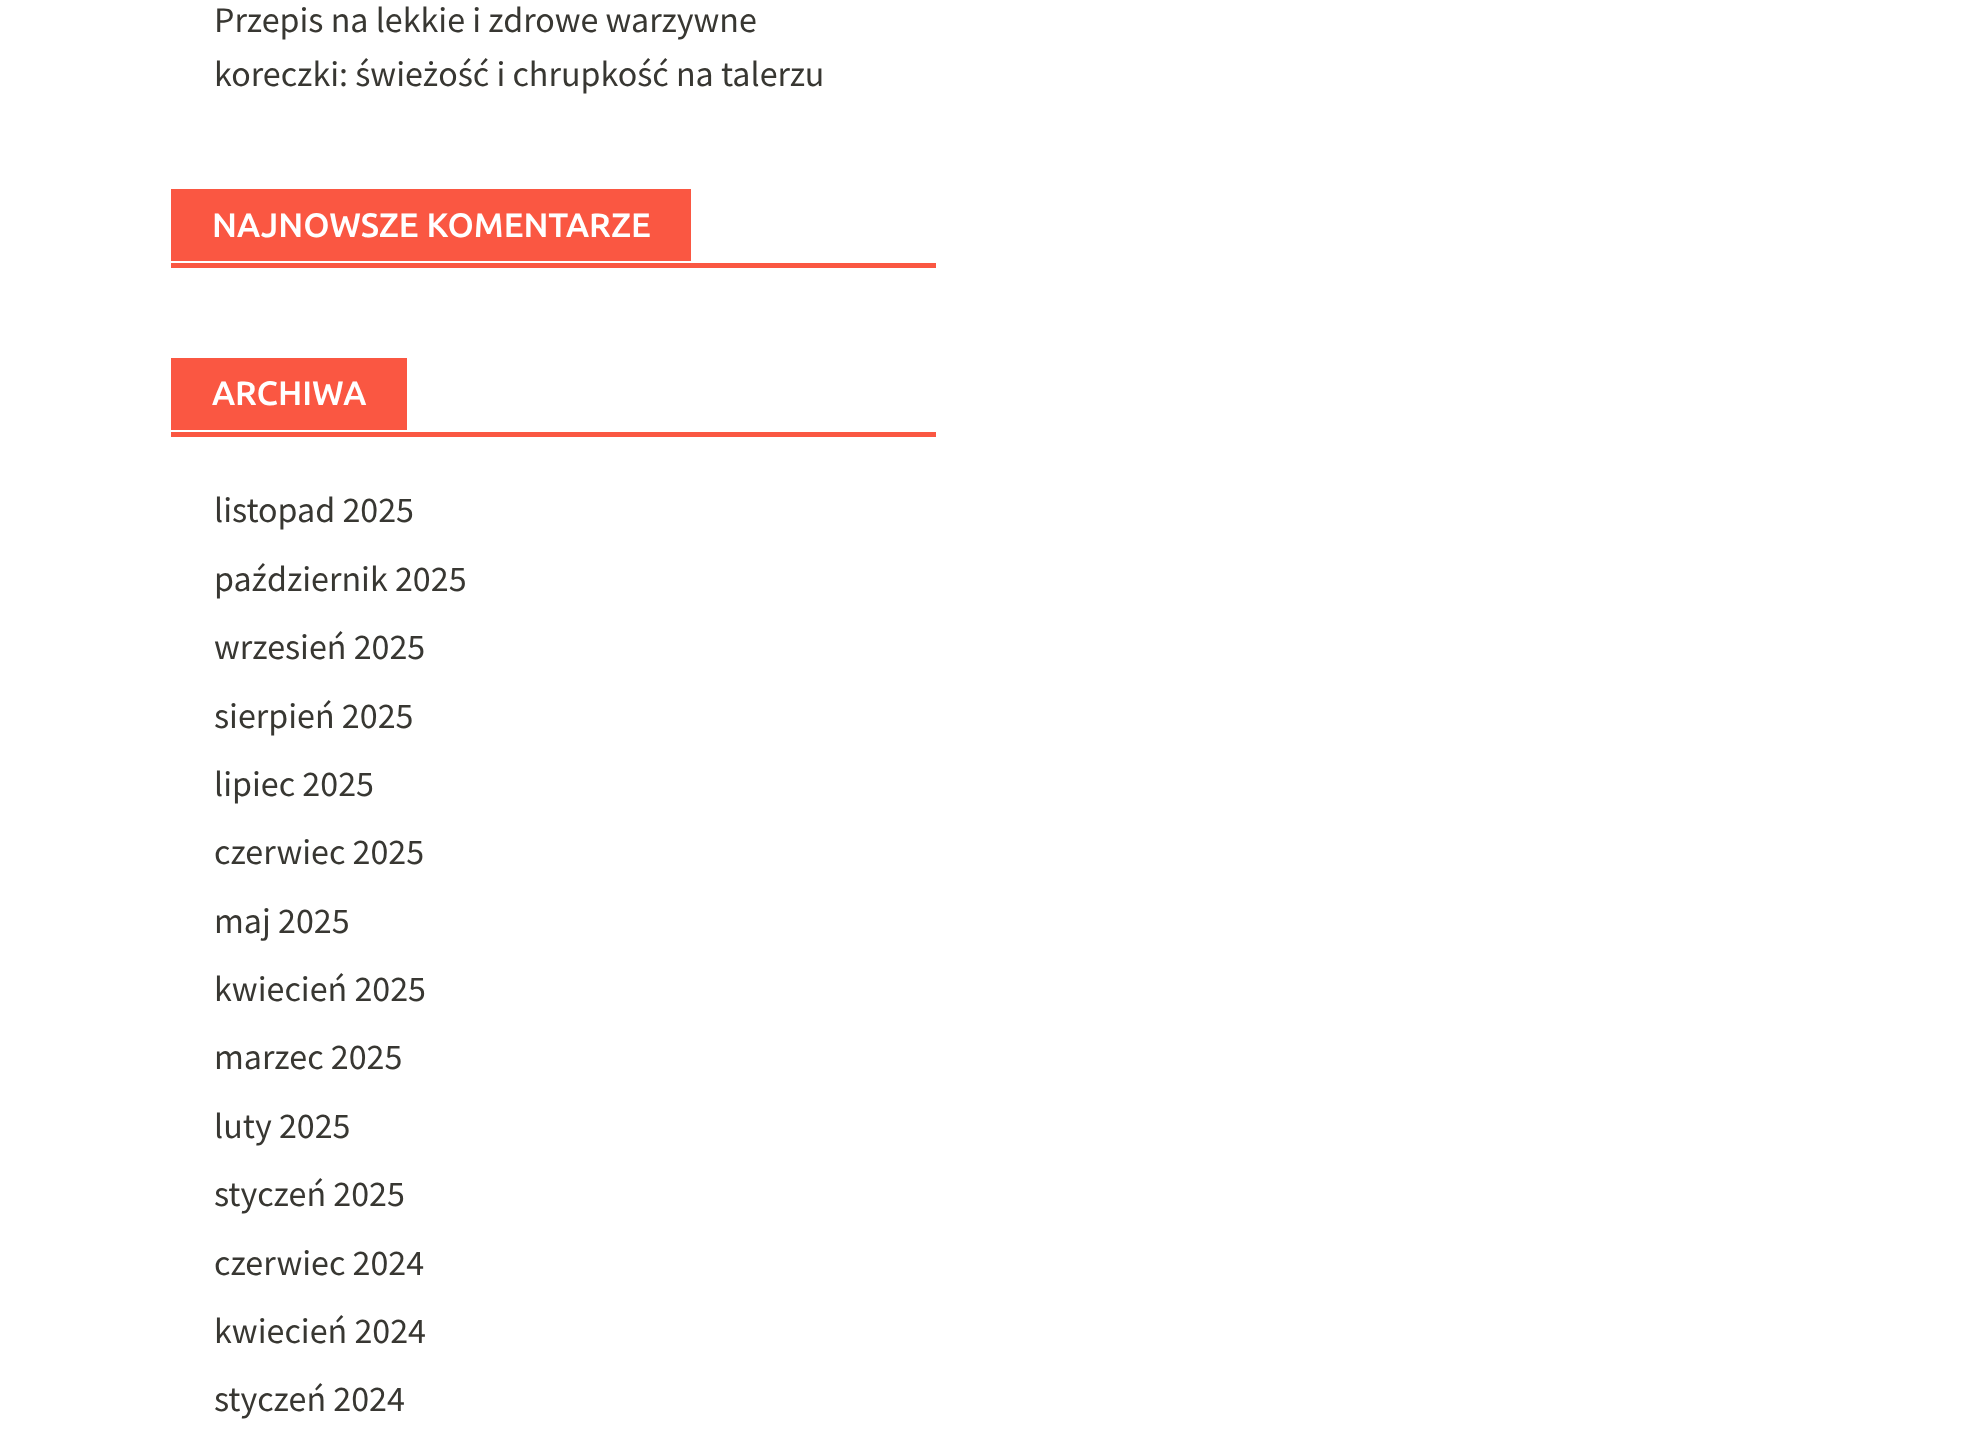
<svg xmlns="http://www.w3.org/2000/svg" width="1961" height="1449" viewBox="0 0 1961 1449">
  <rect width="100%" height="100%" fill="#ffffff"/>
  <text x="214" y="32" font-family="Source Sans Pro" font-size="36" fill="#383732">Przepis na lekkie i zdrowe warzywne</text>
  <text x="214" y="86" font-family="Source Sans Pro" font-size="36" fill="#383732">koreczki: świeżość i chrupkość na talerzu</text>
  <rect x="171" y="263" width="765" height="5" fill="#fa5742"/>
  <rect x="171" y="189" width="520" height="72" fill="#fa5742"/>
  <text x="212" y="237" font-family="Ubuntu" font-size="33.75" font-weight="500" fill="#ffffff">NAJNOWSZE KOMENTARZE</text>
  <rect x="171" y="432" width="765" height="5" fill="#fa5742"/>
  <rect x="171" y="358" width="236" height="72" fill="#fa5742"/>
  <text x="212" y="405" font-family="Ubuntu" font-size="33.75" font-weight="500" fill="#ffffff">ARCHIWA</text>
  <text x="214" y="522" font-family="Source Sans Pro" font-size="36" fill="#383732">listopad 2025</text>
  <text x="214" y="591" font-family="Source Sans Pro" font-size="36" fill="#383732">październik 2025</text>
  <text x="214" y="659" font-family="Source Sans Pro" font-size="36" fill="#383732">wrzesień 2025</text>
  <text x="214" y="728" font-family="Source Sans Pro" font-size="36" fill="#383732">sierpień 2025</text>
  <text x="214" y="796" font-family="Source Sans Pro" font-size="36" fill="#383732">lipiec 2025</text>
  <text x="214" y="864" font-family="Source Sans Pro" font-size="36" fill="#383732">czerwiec 2025</text>
  <text x="214" y="933" font-family="Source Sans Pro" font-size="36" fill="#383732">maj 2025</text>
  <text x="214" y="1001" font-family="Source Sans Pro" font-size="36" fill="#383732">kwiecień 2025</text>
  <text x="214" y="1069" font-family="Source Sans Pro" font-size="36" fill="#383732">marzec 2025</text>
  <text x="214" y="1138" font-family="Source Sans Pro" font-size="36" fill="#383732">luty 2025</text>
  <text x="214" y="1206" font-family="Source Sans Pro" font-size="36" fill="#383732">styczeń 2025</text>
  <text x="214" y="1275" font-family="Source Sans Pro" font-size="36" fill="#383732">czerwiec 2024</text>
  <text x="214" y="1343" font-family="Source Sans Pro" font-size="36" fill="#383732">kwiecień 2024</text>
  <text x="214" y="1411" font-family="Source Sans Pro" font-size="36" fill="#383732">styczeń 2024</text>
</svg>
